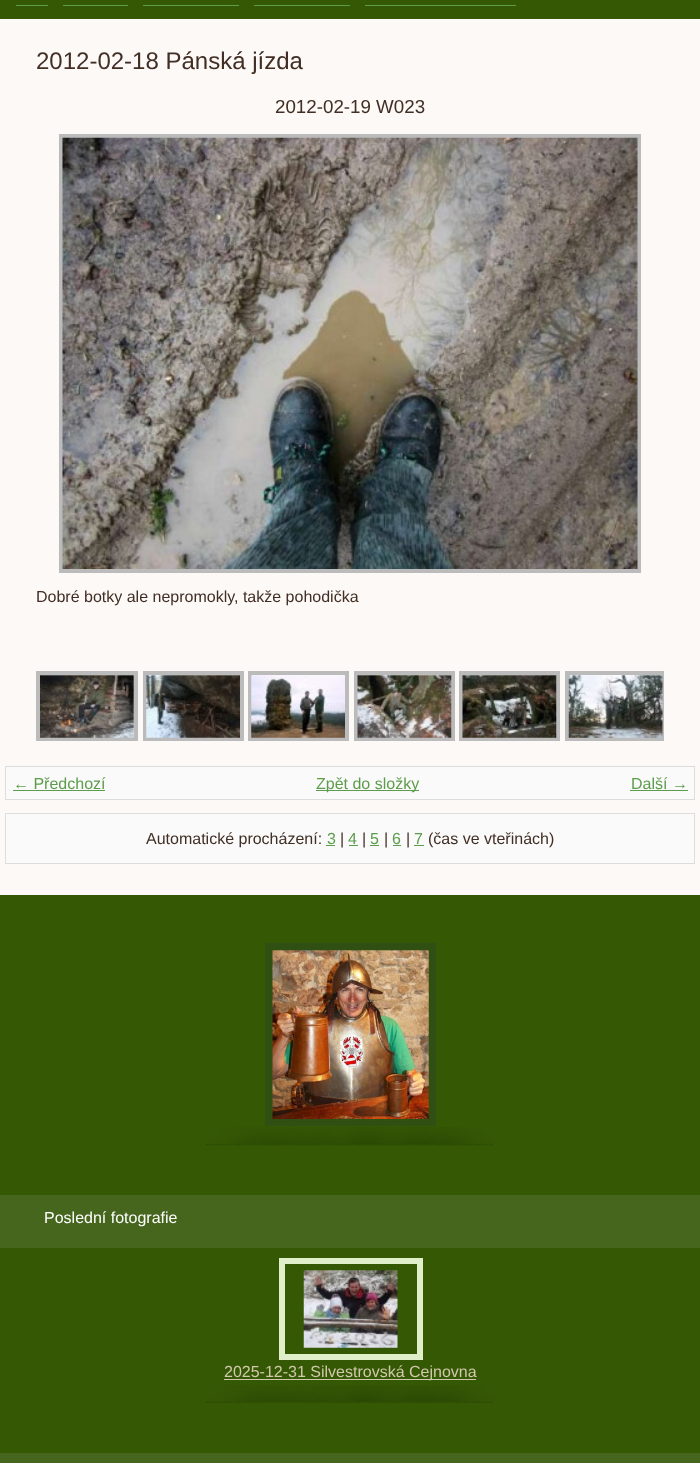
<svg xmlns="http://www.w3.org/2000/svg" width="700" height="1463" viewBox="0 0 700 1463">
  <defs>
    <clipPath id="clip1"><rect x="36" y="640" width="628" height="108"/></clipPath>
  </defs>
  <rect width="100%" height="100%" fill="#355805"/>
  <rect x="16" y="5" width="32" height="1" fill="#5c9c4b"/>
  <rect x="63" y="5" width="65" height="1" fill="#5c9c4b"/>
  <rect x="143" y="5" width="96" height="1" fill="#5c9c4b"/>
  <rect x="254" y="5" width="96" height="1" fill="#5c9c4b"/>
  <rect x="365" y="5" width="151" height="1" fill="#5c9c4b"/>
  <rect x="0" y="19" width="700" height="876" fill="#fcf9f7"/>
  <text x="36" y="69" font-family="Liberation Sans" font-size="24" fill="#412e24">2012-02-18 Pánská jízda</text>
  <text x="275" y="113" font-family="Liberation Sans" font-size="18.75" fill="#412e24">2012-02-19 W023</text>
  <rect x="61" y="136" width="578" height="435" fill="none" stroke="#bbbbbb" stroke-width="4"/>
  <image x="62" y="137" width="576" height="432" href="img1.png"/>
  <text x="36" y="602" font-family="Liberation Sans" font-size="16" fill="#412e24">Dobré botky ale nepromokly, takže pohodička</text>
  <rect x="38" y="673" width="98" height="66" fill="none" stroke="#bbbbbb" stroke-width="4"/>
  <rect x="145" y="673" width="97" height="66" fill="none" stroke="#bbbbbb" stroke-width="4"/>
  <rect x="250" y="673" width="97" height="66" fill="none" stroke="#bbbbbb" stroke-width="4"/>
  <rect x="356" y="673" width="97" height="66" fill="none" stroke="#bbbbbb" stroke-width="4"/>
  <rect x="461" y="673" width="97" height="66" fill="none" stroke="#bbbbbb" stroke-width="4"/>
  <g clip-path="url(#clip1)">
    <rect x="567" y="673" width="97" height="66" fill="none" stroke="#bbbbbb" stroke-width="4"/>
  </g>
  <image x="40" y="675" width="94" height="63" href="img2.png"/>
  <image x="146" y="675" width="94" height="63" href="img3.png"/>
  <image x="251" y="675" width="94" height="63" href="img4.png"/>
  <image x="357" y="675" width="95" height="63" href="img5.png"/>
  <image x="462" y="675" width="95" height="63" href="img6.png"/>
  <image x="568" y="675" width="95" height="63" href="img7.png"/>
  <rect x="5.5" y="766.5" width="689" height="33" fill="#fafafa" stroke="#dddddd"/>
  <text x="13" y="789" font-family="Liberation Sans" font-size="16" fill="#5c9c4b">← Předchozí</text>
  <rect x="13" y="790" width="92" height="1" fill="#5c9c4b"/>
  <rect x="316" y="790" width="103" height="1" fill="#5c9c4b"/>
  <text x="316" y="789" font-family="Liberation Sans" font-size="16" fill="#5c9c4b">Zpět do složky</text>
  <text x="631" y="789" font-family="Liberation Sans" font-size="16" fill="#5c9c4b">Další →</text>
  <rect x="630" y="790" width="58" height="1" fill="#5c9c4b"/>
  <rect x="5.5" y="813.5" width="689" height="50" fill="#fafafa" stroke="#dddddd"/>
  <text x="146" y="844" font-family="Liberation Sans" font-size="16" fill="#412e24">Automatické procházení:</text>
  <text x="327" y="844" font-family="Liberation Sans" font-size="16" fill="#5c9c4b">3</text>
  <rect x="326" y="845" width="9" height="1" fill="#5c9c4b"/>
  <text x="340" y="844" font-family="Liberation Sans" font-size="16" fill="#412e24">|</text>
  <text x="348" y="844" font-family="Liberation Sans" font-size="16" fill="#5c9c4b">4</text>
  <rect x="349" y="845" width="9" height="1" fill="#5c9c4b"/>
  <text x="362" y="844" font-family="Liberation Sans" font-size="16" fill="#412e24">|</text>
  <text x="370" y="844" font-family="Liberation Sans" font-size="16" fill="#5c9c4b">5</text>
  <rect x="370" y="845" width="9" height="1" fill="#5c9c4b"/>
  <text x="384" y="844" font-family="Liberation Sans" font-size="16" fill="#412e24">|</text>
  <text x="392" y="844" font-family="Liberation Sans" font-size="16" fill="#5c9c4b">6</text>
  <rect x="393" y="845" width="8" height="1" fill="#5c9c4b"/>
  <text x="406" y="844" font-family="Liberation Sans" font-size="16" fill="#412e24">|</text>
  <text x="414" y="844" font-family="Liberation Sans" font-size="16" fill="#5c9c4b">7</text>
  <rect x="414" y="845" width="10" height="1" fill="#5c9c4b"/>
  <text x="428" y="844" font-family="Liberation Sans" font-size="16" fill="#412e24">(čas ve vteřinách)</text>
  <image x="206" y="1127" width="288" height="19" href="img8.png"/>
  <rect x="269" y="947" width="163" height="175" fill="none" stroke="#304f12" stroke-width="8"/>
  <image x="272" y="950" width="157" height="169" href="img9.png"/>
  <rect x="0" y="1195" width="700" height="53" fill="#46661e"/>
  <text x="44" y="1223" font-family="Liberation Sans" font-size="16" fill="#ffffff">Poslední fotografie</text>
  <image x="206" y="1385" width="288" height="18" href="img10.png"/>
  <rect x="282" y="1261" width="138" height="96" fill="none" stroke="#e0efca" stroke-width="6"/>
  <image x="303" y="1270" width="95" height="78" href="img11.png"/>
  <rect x="224" y="1379" width="252" height="1" fill="#d0c8aa"/>
  <text x="224" y="1377" font-family="Liberation Sans" font-size="16" fill="#d0c8aa">2025-12-31 Silvestrovská Cejnovna</text>
  <rect x="0" y="1453" width="700" height="10" fill="#46661e"/>
</svg>
